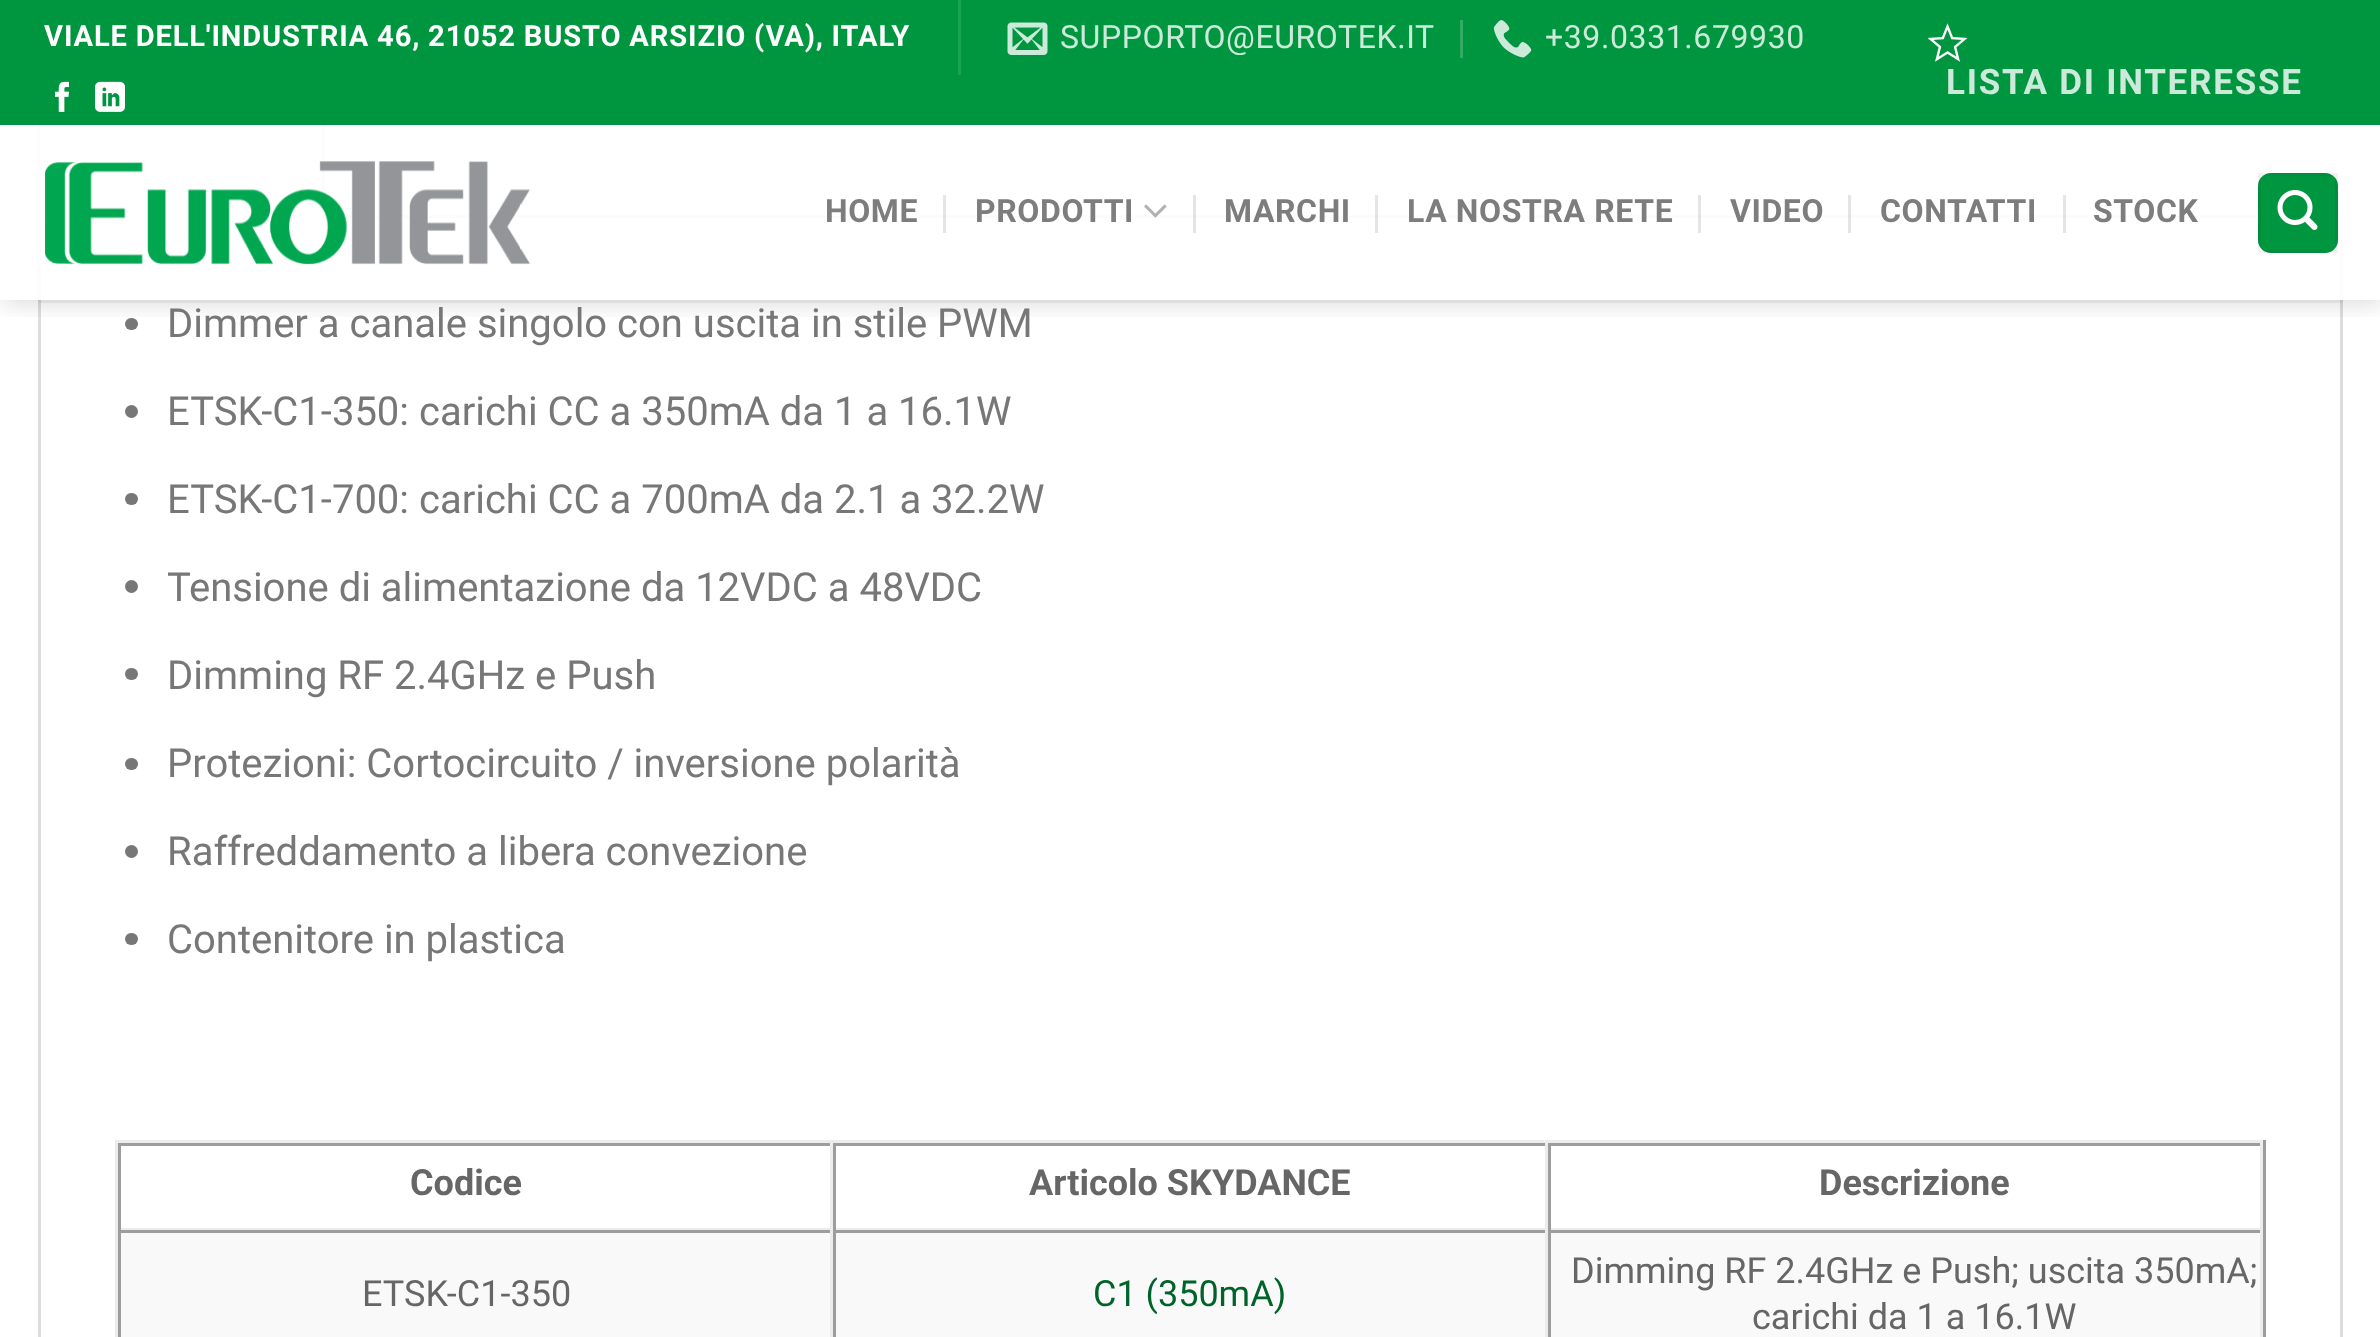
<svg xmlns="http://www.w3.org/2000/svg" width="2380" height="1337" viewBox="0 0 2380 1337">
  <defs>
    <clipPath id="clip1"><rect x="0" y="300" width="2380" height="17"/></clipPath>
    <filter id="blur1" x="-50%" y="-200%" width="200%" height="500%"><feGaussianBlur stdDeviation="12.5"/></filter>
  </defs>
  <rect width="100%" height="100%" fill="#ffffff"/>
  <rect x="39.5" y="216.5" width="2302" height="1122" fill="none" stroke="#dddddd" stroke-width="3"/>
  <rect x="40" y="215" width="282" height="3" fill="#ffffff"/>
  <path d="M325 110V218H322V115Z" fill="#dddddd"/>
  <path d="M38 218V110L40 115V218Z" fill="#dddddd"/>
  <rect x="125" y="318" width="13" height="12" rx="6" fill="#777777"/>
  <g clip-path="url(#clip1)">
    <rect x="3" y="3" width="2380" height="300" fill="#000000" fill-opacity="0.15" filter="url(#blur1)"/>
  </g>
  <rect x="0" y="0" width="2380" height="125" fill="#009640"/>
  <text x="44" y="46" word-spacing="-0.25" font-family="Roboto" font-size="29.1" font-weight="bold" letter-spacing="0.87" fill="#ffffff">VIALE DELL'INDUSTRIA 46, 21052 BUSTO ARSIZIO (VA), ITALY</text>
  <rect x="958" y="0" width="3" height="75" fill="#1aa153"/>
  <image x="1007" y="22" width="41" height="33" href="img1.png"/>
  <text x="1060" y="48" font-family="Roboto" font-size="32" letter-spacing="0.6" fill="#ccead9">SUPPORTO@EUROTEK.IT</text>
  <rect x="1460" y="20" width="3" height="38" fill="#33ab66"/>
  <image x="1493" y="20" width="39" height="38" href="img2.png"/>
  <text x="1545" y="48" font-family="Roboto" font-size="32" letter-spacing="0.6" fill="#ccead9">+39.0331.679930</text>
  <image x="55" y="81" width="14" height="31" href="img3.png"/>
  <image x="95" y="81" width="30" height="31" href="img4.png"/>
  <image x="1928" y="23" width="40" height="39" href="img5.png"/>
  <text x="1946" y="94" font-family="Roboto" font-size="35" font-weight="bold" letter-spacing="1.75" fill="#ccead9">LISTA DI INTERESSE</text>
  <rect x="38" y="125" width="2305" height="175" fill="#ffffff" fill-opacity="0.9"/>
  <image x="45" y="161" width="485" height="104" href="img6.png"/>
  <text x="825" y="222" font-family="Roboto" font-size="32" font-weight="bold" letter-spacing="0.6" fill="#7d7d7d">HOME</text>
  <rect x="943" y="195" width="3" height="38" fill="#000000" fill-opacity="0.1"/>
  <text x="975" y="222" font-family="Roboto" font-size="32" font-weight="bold" letter-spacing="0.6" fill="#7d7d7d">PRODOTTI</text>
  <image x="1144" y="204" width="23" height="14" href="img7.png"/>
  <rect x="1193" y="195" width="3" height="38" fill="#000000" fill-opacity="0.1"/>
  <text x="1224" y="222" font-family="Roboto" font-size="32" font-weight="bold" letter-spacing="0.6" fill="#7d7d7d">MARCHI</text>
  <rect x="1375" y="195" width="3" height="38" fill="#000000" fill-opacity="0.1"/>
  <text x="1407" y="222" font-family="Roboto" font-size="32" font-weight="bold" letter-spacing="0.6" fill="#7d7d7d">LA NOSTRA RETE</text>
  <rect x="1698" y="195" width="3" height="38" fill="#000000" fill-opacity="0.1"/>
  <text x="1730" y="222" font-family="Roboto" font-size="32" font-weight="bold" letter-spacing="0.6" fill="#7d7d7d">VIDEO</text>
  <rect x="1848" y="195" width="3" height="38" fill="#000000" fill-opacity="0.1"/>
  <text x="1880" y="222" font-family="Roboto" font-size="32" font-weight="bold" letter-spacing="0.6" fill="#7d7d7d">CONTATTI</text>
  <rect x="2063" y="195" width="3" height="38" fill="#000000" fill-opacity="0.1"/>
  <text x="2093" y="222" font-family="Roboto" font-size="32" font-weight="bold" letter-spacing="0.6" fill="#7d7d7d">STOCK</text>
  <rect x="2258" y="173" width="80" height="80" rx="13" fill="#009640"/>
  <rect x="2259.5" y="174.5" width="77" height="77" fill="none" stroke="#000000" stroke-opacity="0.05" stroke-width="3"/>
  <image x="2277" y="190" width="41" height="40" href="img8.png"/>
  <rect x="38" y="300" width="2305" height="3" fill="#777777" fill-opacity="0.1"/>
  <text x="167" y="337" font-family="Roboto" font-size="40" fill="#777777">Dimmer a canale singolo con uscita in stile PWM</text>
  <circle cx="131.5" cy="411.5" r="6.5" fill="#777777"/>
  <text x="167" y="425" font-family="Roboto" font-size="40" fill="#777777">ETSK-C1-350: carichi CC a 350mA da 1 a 16.1W</text>
  <rect x="125" y="493" width="13" height="12" rx="6" fill="#777777"/>
  <text x="167" y="513" font-family="Roboto" font-size="40" fill="#777777">ETSK-C1-700: carichi CC a 700mA da 2.1 a 32.2W</text>
  <circle cx="131.5" cy="586.5" r="6.5" fill="#777777"/>
  <text x="167" y="601" font-family="Roboto" font-size="40" fill="#777777">Tensione di alimentazione da 12VDC a 48VDC</text>
  <rect x="125" y="668" width="13" height="12" rx="6" fill="#777777"/>
  <text x="167" y="689" font-family="Roboto" font-size="40" fill="#777777">Dimming RF 2.4GHz e Push</text>
  <rect x="125" y="758" width="13" height="12" rx="6" fill="#777777"/>
  <text x="167" y="777" font-family="Roboto" font-size="40" fill="#777777">Protezioni: Cortocircuito / inversione polarità</text>
  <circle cx="131.5" cy="851.5" r="6.5" fill="#777777"/>
  <text x="167" y="865" font-family="Roboto" font-size="40" fill="#777777">Raffreddamento a libera convezione</text>
  <rect x="125" y="933" width="13" height="12" rx="6" fill="#777777"/>
  <text x="167" y="953" font-family="Roboto" font-size="40" fill="#777777">Contenitore in plastica</text>
  <rect x="115" y="1140" width="2150" height="3" fill="#ececec"/>
  <rect x="2263" y="1140" width="3" height="197" fill="#9d9d9d"/>
  <rect x="115" y="1140" width="3" height="197" fill="#ececec"/>
  <rect x="118" y="1143" width="2145" height="3" fill="#9d9d9d"/>
  <rect x="830" y="1143" width="3" height="87" fill="#ececec"/>
  <rect x="118" y="1228" width="715" height="2" fill="#ececec"/>
  <rect x="118" y="1143" width="3" height="87" fill="#9d9d9d"/>
  <text x="410" y="1195" font-family="Roboto" font-size="36" font-weight="bold" fill="#666666">Codice</text>
  <rect x="1545" y="1143" width="3" height="87" fill="#ececec"/>
  <rect x="833" y="1228" width="715" height="2" fill="#ececec"/>
  <rect x="833" y="1143" width="3" height="87" fill="#9d9d9d"/>
  <text x="1029" y="1195" font-family="Roboto" font-size="36" font-weight="bold" fill="#666666">Articolo SKYDANCE</text>
  <rect x="2260" y="1143" width="3" height="87" fill="#ececec"/>
  <rect x="1548" y="1228" width="715" height="2" fill="#ececec"/>
  <rect x="1548" y="1143" width="3" height="87" fill="#9d9d9d"/>
  <text x="1819" y="1195" font-family="Roboto" font-size="36" font-weight="bold" fill="#666666">Descrizione</text>
  <rect x="121" y="1233" width="709" height="104" fill="#f9f9f9"/>
  <rect x="118" y="1230" width="2145" height="3" fill="#9d9d9d"/>
  <rect x="830" y="1230" width="3" height="107" fill="#ececec"/>
  <rect x="118" y="1230" width="3" height="107" fill="#9d9d9d"/>
  <text x="362" y="1306" font-family="Roboto" font-size="36" fill="#666666">ETSK-C1-350</text>
  <rect x="836" y="1233" width="709" height="104" fill="#f9f9f9"/>
  <rect x="1545" y="1230" width="3" height="107" fill="#ececec"/>
  <rect x="833" y="1230" width="3" height="107" fill="#9d9d9d"/>
  <text x="1093" y="1306" font-family="Roboto" font-size="36" fill="#00632a">C1 (350mA)</text>
  <rect x="1551" y="1233" width="709" height="104" fill="#f9f9f9"/>
  <rect x="2260" y="1230" width="3" height="107" fill="#ececec"/>
  <rect x="1548" y="1230" width="3" height="107" fill="#9d9d9d"/>
  <text x="1571" y="1283" font-family="Roboto" font-size="36" fill="#666666">Dimming RF 2.4GHz e Push; uscita 350mA;</text>
  <text x="1752" y="1329" font-family="Roboto" font-size="36" fill="#666666">carichi da 1 a 16.1W</text>
</svg>
